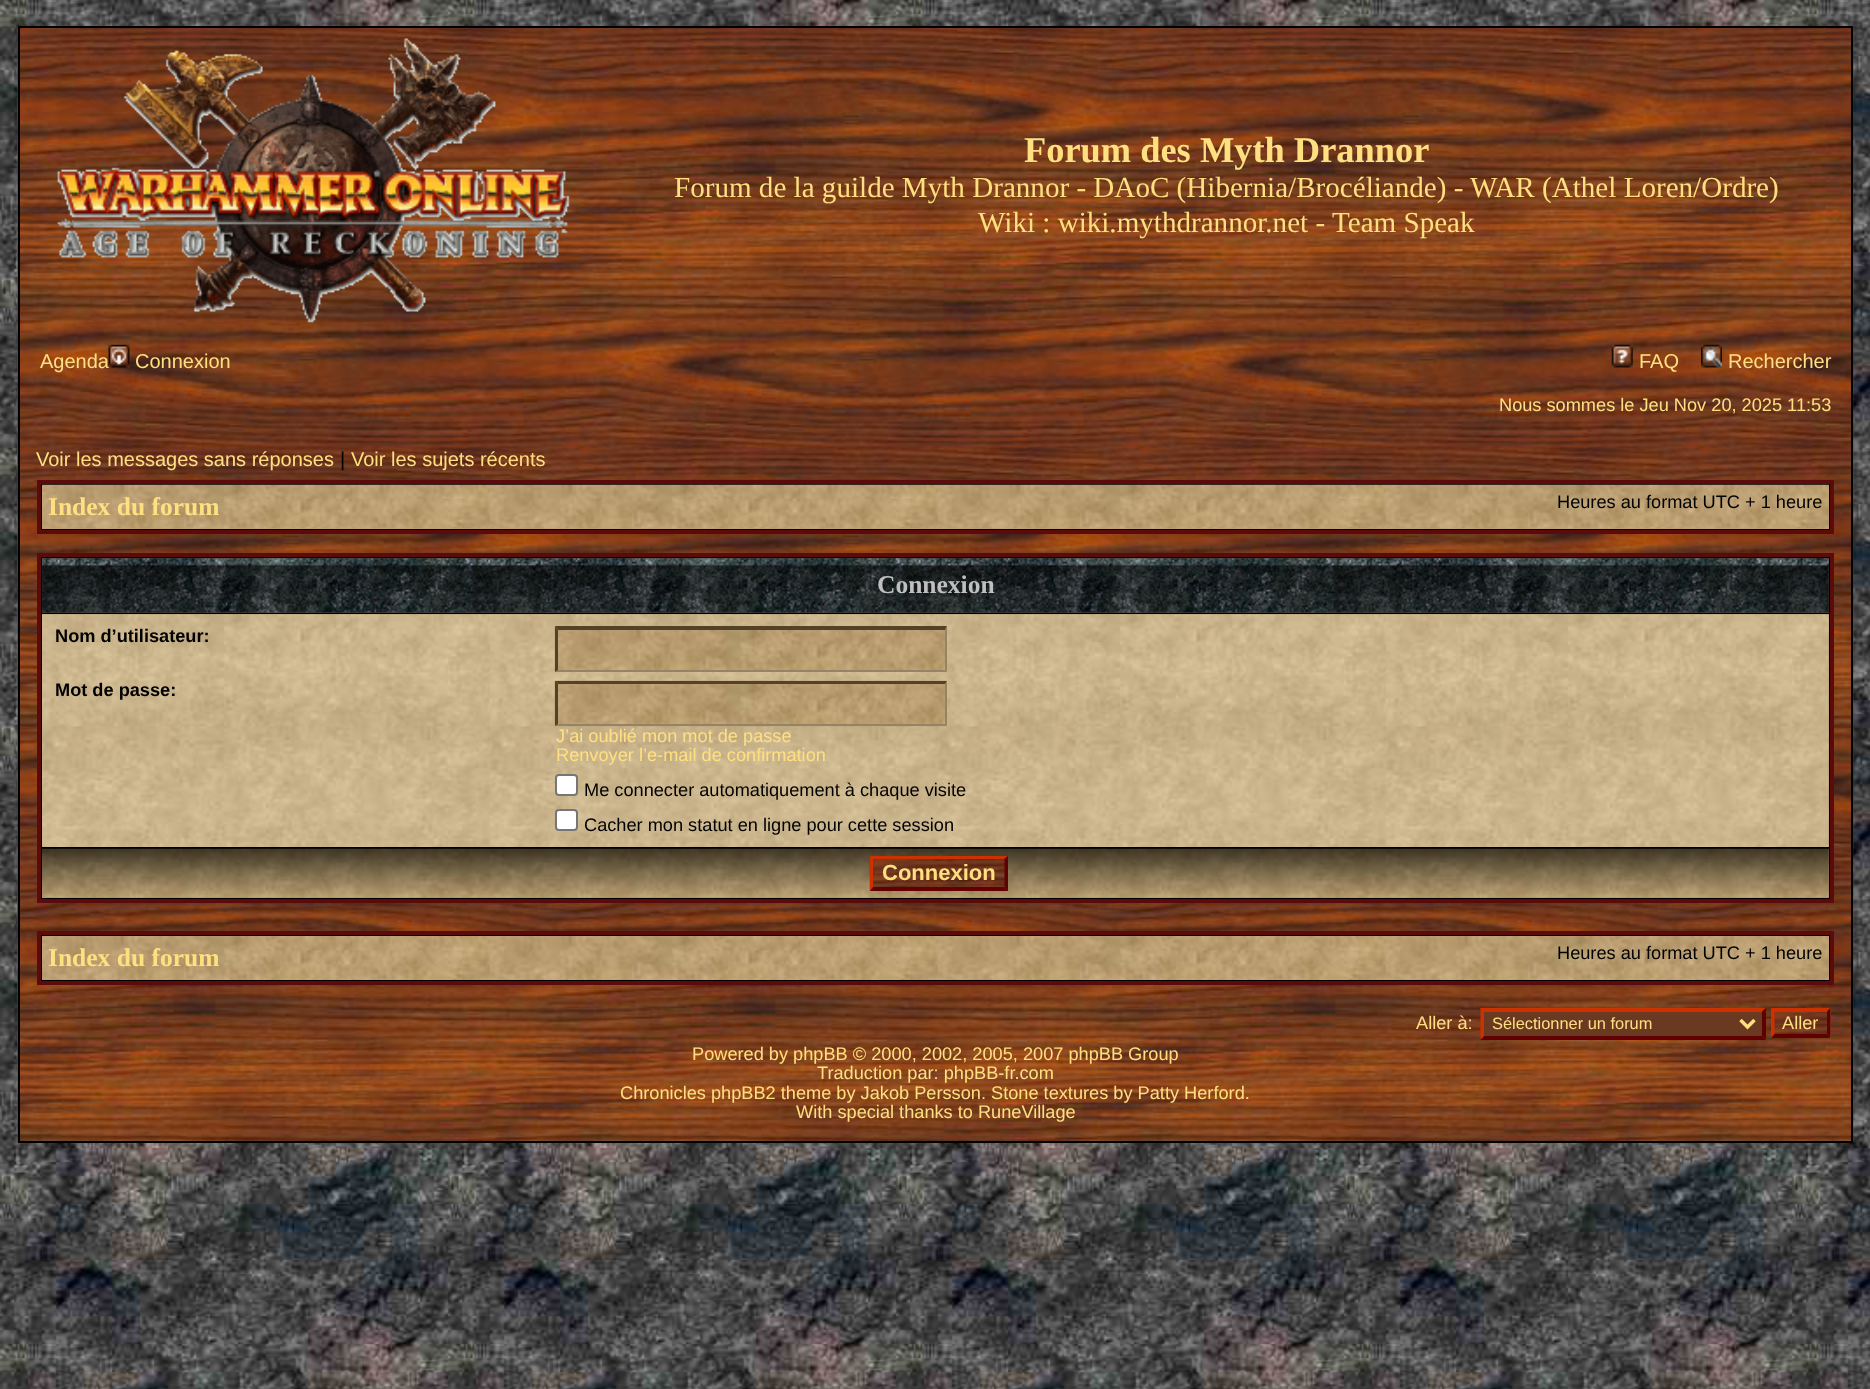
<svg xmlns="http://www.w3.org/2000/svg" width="1870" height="1389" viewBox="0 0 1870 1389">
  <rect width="100%" height="100%" fill="#ffffff"/>
  <image x="0" y="0" width="1870" height="1389" href="img1.png"/>
  <image x="17" y="26" width="1837" height="1117" href="img2.png"/>
  <rect x="19" y="27" width="1833" height="1115" fill="none" stroke="#000000" stroke-width="2"/>
  <image x="57" y="38" width="513" height="285" href="img3.png"/>
  <text x="1024" y="162" font-family="Liberation Serif" font-size="36.4" font-weight="bold" fill="#ffe081">Forum des Myth Drannor</text>
  <text x="674" y="197" font-family="Liberation Serif" font-size="29.1" fill="#ffe081">Forum de la guilde Myth Drannor - DAoC (Hibernia/Brocéliande) - WAR (Athel Loren/Ordre)</text>
  <text x="978" y="232" font-family="Liberation Serif" font-size="29.1" fill="#ffe081">Wiki : wiki.mythdrannor.net -</text>
  <text x="1332" y="232" font-family="Liberation Serif" font-size="29.1" fill="#ffe081">Team Speak</text>
  <text x="40" y="368" font-family="Liberation Sans" font-size="20" fill="#ffe081">Agenda</text>
  <image x="108" y="344" width="22" height="24" href="img4.png"/>
  <text x="135" y="368" font-family="Liberation Sans" font-size="20" fill="#ffe081">Connexion</text>
  <image x="1611" y="344" width="22" height="24" href="img5.png"/>
  <text x="1639" y="368" font-family="Liberation Sans" font-size="20" fill="#ffe081">FAQ</text>
  <image x="1701" y="344" width="21" height="24" href="img6.png"/>
  <text x="1728" y="368" font-family="Liberation Sans" font-size="20" fill="#ffe081">Rechercher</text>
  <text x="1499" y="411" font-family="Liberation Sans" font-size="18.2" fill="#ffe081">Nous sommes le Jeu Nov 20, 2025 11:53</text>
  <text x="36" y="466" font-family="Liberation Sans" font-size="20" fill="#ffe081">Voir les messages sans réponses</text>
  <text x="340" y="466" font-family="Liberation Sans" font-size="20" fill="#000000">|</text>
  <text x="351" y="466" font-family="Liberation Sans" font-size="20" fill="#ffe081">Voir les sujets récents</text>
  <rect x="39" y="482" width="1793" height="50" fill="#000000" stroke="#5b0b0b" stroke-width="4"/>
  <rect x="42" y="485" width="1787" height="44" fill="#ba9f70"/>
  <image x="42" y="484" width="1787" height="45" href="img7.png"/>
  <text x="48" y="515" font-family="Liberation Serif" font-size="25.5" font-weight="bold" fill="#ffe081">Index du forum</text>
  <text x="1557" y="508" font-family="Liberation Sans" font-size="18.2" fill="#000000">Heures au format UTC + 1 heure</text>
  <rect x="39" y="555" width="1793" height="346" fill="#000000" stroke="#5b0b0b" stroke-width="4"/>
  <rect x="42" y="558" width="1787" height="55" fill="#424242"/>
  <image x="42" y="558" width="1787" height="55" href="img8.png"/>
  <text x="877" y="593" font-family="Liberation Serif" font-size="25.5" font-weight="bold" fill="#c0c0c0">Connexion</text>
  <rect x="42" y="614" width="1787" height="233" fill="#ab8c5b"/>
  <image x="42" y="614" width="1787" height="233" href="img9.png"/>
  <text x="55" y="642" font-family="Liberation Sans" font-size="18.2" font-weight="bold" fill="#000000">Nom d’utilisateur:</text>
  <image x="554" y="626" width="393" height="46" href="img10.png"/>
  <path d="M555 626H947L945 630H558Z" fill="#524229"/>
  <path d="M947 626V672L945 670V630Z" fill="#948466"/>
  <path d="M947 672H555L558 670H945Z" fill="#948466"/>
  <path d="M555 672V626L558 630V670Z" fill="#524229"/>
  <text x="55" y="696" font-family="Liberation Sans" font-size="18.2" font-weight="bold" fill="#000000">Mot de passe:</text>
  <image x="554" y="680" width="393" height="47" href="img11.png"/>
  <path d="M555 681H947L945 684H558Z" fill="#524229"/>
  <path d="M947 681V726L945 724V684Z" fill="#948466"/>
  <path d="M947 726H555L558 724H945Z" fill="#948466"/>
  <path d="M555 726V681L558 684V724Z" fill="#524229"/>
  <text x="556" y="742" font-family="Liberation Sans" font-size="18.2" fill="#ffe081">J’ai oublié mon mot de passe</text>
  <text x="556" y="761" font-family="Liberation Sans" font-size="18.2" fill="#ffe081">Renvoyer l’e-mail de confirmation</text>
  <rect x="556" y="775" width="21" height="20" rx="3" fill="#ffffff" stroke="#767676" stroke-width="2"/>
  <text x="584" y="796" font-family="Liberation Sans" font-size="18.2" fill="#000000">Me connecter automatiquement à chaque visite</text>
  <rect x="556" y="810" width="21" height="20" rx="3" fill="#ffffff" stroke="#767676" stroke-width="2"/>
  <text x="584" y="831" font-family="Liberation Sans" font-size="18.2" fill="#000000">Cacher mon statut en ligne pour cette session</text>
  <rect x="42" y="849" width="1787" height="49" fill="#9e8052"/>
  <image x="42" y="848" width="1787" height="50" href="img12.png"/>
  <image x="869" y="855" width="139" height="36" href="img13.png"/>
  <path d="M870 856H1008L1004 859H873Z" fill="#ce3100"/>
  <path d="M1008 856V891L1004.5 887V859Z" fill="#600000"/>
  <path d="M1008 891H870L873 887H1004Z" fill="#600000"/>
  <path d="M870 891V856L873 859V887Z" fill="#ce3100"/>
  <text x="882" y="880" font-family="Liberation Sans" font-size="22" font-weight="bold" fill="#ffe081">Connexion</text>
  <rect x="39" y="933" width="1793" height="50" fill="#000000" stroke="#5b0b0b" stroke-width="4"/>
  <rect x="42" y="936" width="1787" height="44" fill="#ba9f70"/>
  <image x="42" y="936" width="1787" height="44" href="img14.png"/>
  <text x="48" y="966" font-family="Liberation Serif" font-size="25.5" font-weight="bold" fill="#ffe081">Index du forum</text>
  <text x="1557" y="959" font-family="Liberation Sans" font-size="18.2" fill="#000000">Heures au format UTC + 1 heure</text>
  <text x="1416" y="1029" font-family="Liberation Sans" font-size="18.2" fill="#ffe081">Aller à:</text>
  <rect x="1481" y="1008" width="285" height="32" fill="#6a3921"/>
  <path d="M1480 1008H1766L1762 1012H1484Z" fill="#ce3100"/>
  <path d="M1766 1008V1039.5L1762 1036V1011.5Z" fill="#600000"/>
  <path d="M1766 1040H1480L1484 1036H1762Z" fill="#600000"/>
  <path d="M1480.5 1039.5V1008L1484 1011.5V1036Z" fill="#ce3100"/>
  <path d="M1740.5 1020L1747.5 1027L1754.5 1020" fill="none" stroke="#ffe081" stroke-width="3.5"/>
  <text x="1492" y="1029" font-family="Liberation Sans" font-size="16.4" fill="#ffe081">Sélectionner un forum</text>
  <rect x="1771" y="1008" width="60" height="30" fill="#9e8052"/>
  <image x="1771" y="1008" width="60" height="30" href="img15.png"/>
  <path d="M1771 1008H1830L1827 1012H1774Z" fill="#ce3100"/>
  <path d="M1830.5 1008V1038L1827 1034V1011.5Z" fill="#600000"/>
  <path d="M1830 1038H1771L1774 1034H1827Z" fill="#600000"/>
  <path d="M1771 1038V1008L1774.5 1011.5V1034Z" fill="#ce3100"/>
  <text x="1782" y="1029" font-family="Liberation Sans" font-size="18.2" fill="#ffe081">Aller</text>
  <text x="692" y="1060" font-family="Liberation Sans" font-size="18.2" fill="#ffe081">Powered by phpBB © 2000, 2002, 2005, 2007 phpBB Group</text>
  <text x="817" y="1079" font-family="Liberation Sans" font-size="18.2" fill="#ffe081">Traduction par: phpBB-fr.com</text>
  <text x="620" y="1099" font-family="Liberation Sans" font-size="18.2" fill="#ffe081">Chronicles phpBB2 theme by Jakob Persson. Stone textures by Patty Herford.</text>
  <text x="796" y="1118" font-family="Liberation Sans" font-size="18.2" fill="#ffe081">With special thanks to RuneVillage</text>
</svg>
